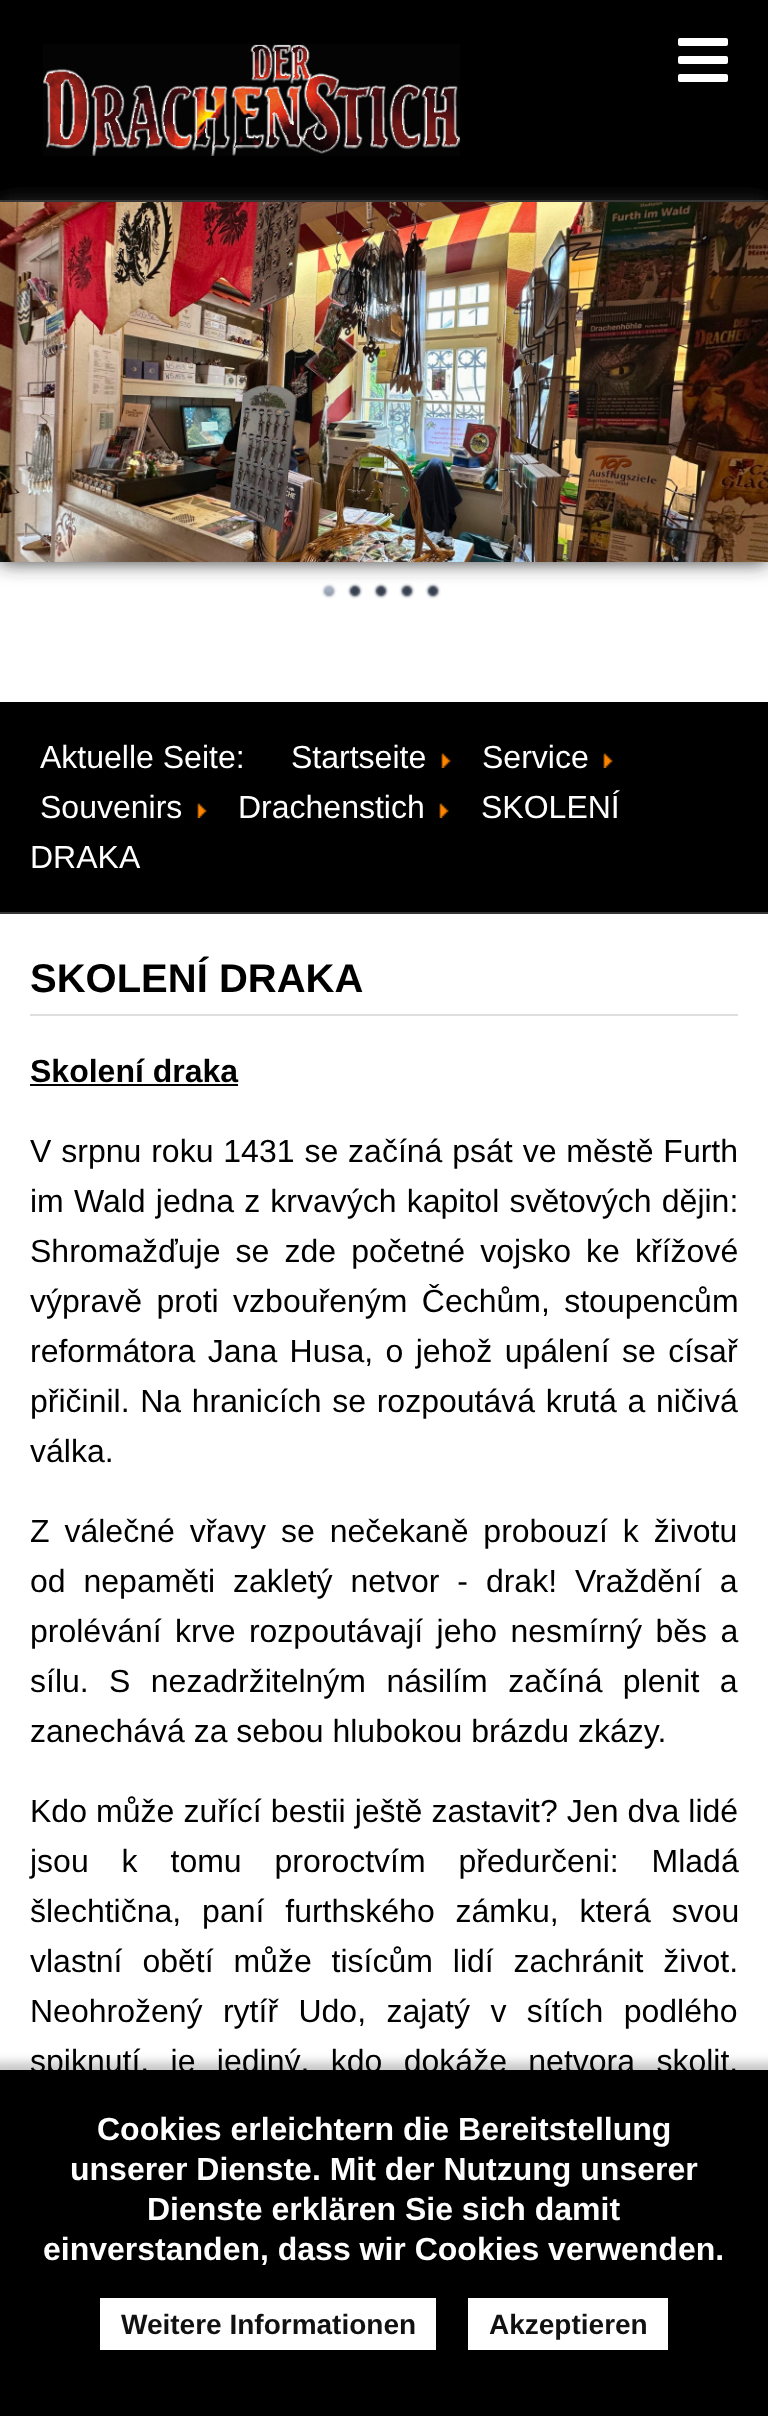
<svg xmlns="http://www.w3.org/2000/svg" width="768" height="2416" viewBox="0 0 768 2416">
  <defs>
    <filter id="blur1" x="-50%" y="-200%" width="200%" height="500%"><feGaussianBlur stdDeviation="10"/></filter>
    <filter id="blur2" x="-50%" y="-200%" width="200%" height="500%"><feGaussianBlur stdDeviation="5"/></filter>
  </defs>
  <rect width="100%" height="100%" fill="#ffffff"/>
  <rect x="0" y="0" width="768" height="200" fill="#000000"/>
  <rect x="0" y="200" width="768" height="2" fill="#363636"/>
  <image x="43" y="44" width="417" height="112" href="img1.png"/>
  <rect x="678" y="38" width="50" height="8" rx="2" fill="#ffffff"/>
  <rect x="678" y="56" width="50" height="8" rx="2" fill="#ffffff"/>
  <rect x="678" y="74" width="50" height="8" rx="2" fill="#ffffff"/>
  <rect x="0" y="202" width="768" height="360" fill="#333333" filter="url(#blur1)"/>
  <image x="0" y="202" width="768" height="360" href="img2.png"/>
  <image x="321" y="583" width="16" height="16" href="img3.png"/>
  <image x="347" y="583" width="16" height="16" href="img4.png"/>
  <image x="373" y="583" width="16" height="16" href="img4.png"/>
  <image x="399" y="583" width="16" height="16" href="img4.png"/>
  <image x="425" y="583" width="16" height="16" href="img4.png"/>
  <rect x="0" y="702" width="768" height="210" fill="#000000"/>
  <rect x="0" y="912" width="768" height="2" fill="#363636"/>
  <text x="40" y="768" font-family="Liberation Sans" font-size="32" fill="#ffffff">Aktuelle Seite:</text>
  <text x="291" y="768" font-family="Liberation Sans" font-size="32" fill="#ffffff">Startseite</text>
  <image x="441" y="753" width="10" height="15" href="img5.png"/>
  <text x="482" y="768" font-family="Liberation Sans" font-size="32" fill="#ffffff">Service</text>
  <image x="603" y="753" width="10" height="15" href="img5.png"/>
  <text x="40" y="818" font-family="Liberation Sans" font-size="32" fill="#ffffff">Souvenirs</text>
  <image x="197" y="803" width="10" height="15" href="img5.png"/>
  <text x="238" y="818" font-family="Liberation Sans" font-size="32" fill="#ffffff">Drachenstich</text>
  <image x="439" y="803" width="10" height="15" href="img5.png"/>
  <text x="481" y="818" font-family="Liberation Sans" font-size="32" fill="#ffffff">SKOLENÍ</text>
  <text x="30" y="868" font-family="Liberation Sans" font-size="32" fill="#ffffff">DRAKA</text>
  <rect x="30" y="1014" width="708" height="2" fill="#dedede"/>
  <text x="30" y="992" font-family="Liberation Sans" font-size="40" font-weight="bold" fill="#000000">SKOLENÍ DRAKA</text>
  <text x="30" y="1082" font-family="Liberation Sans" font-size="32" font-weight="bold" fill="#000000">Skolení draka</text>
  <rect x="30" y="1084" width="208" height="2" fill="#000000"/>
  <text x="30" y="1162" word-spacing="1" font-family="Liberation Sans" font-size="32" fill="#000000">V srpnu roku 1431 se začíná psát ve městě Furth</text>
  <text x="30" y="1212" word-spacing="1.25" font-family="Liberation Sans" font-size="32" fill="#000000">im Wald jedna z krvavých kapitol světových dějin:</text>
  <text x="30" y="1262" word-spacing="6.25" font-family="Liberation Sans" font-size="32" fill="#000000">Shromažďuje se zde početné vojsko ke křížové</text>
  <text x="30" y="1312" word-spacing="5.5" font-family="Liberation Sans" font-size="32" fill="#000000">výpravě proti vzbouřeným Čechům, stoupencům</text>
  <text x="30" y="1362" word-spacing="3.5" font-family="Liberation Sans" font-size="32" fill="#000000">reformátora Jana Husa, o jehož upálení se císař</text>
  <text x="30" y="1412" word-spacing="1.75" font-family="Liberation Sans" font-size="32" fill="#000000">přičinil. Na hranicích se rozpoutává krutá a ničivá</text>
  <text x="30" y="1462" font-family="Liberation Sans" font-size="32" fill="#000000">válka.</text>
  <text x="30" y="1542" word-spacing="6" font-family="Liberation Sans" font-size="32" fill="#000000">Z válečné vřavy se nečekaně probouzí k životu</text>
  <text x="30" y="1592" word-spacing="9" font-family="Liberation Sans" font-size="32" fill="#000000">od nepaměti zakletý netvor - drak! Vraždění a</text>
  <text x="30" y="1642" word-spacing="4.5" font-family="Liberation Sans" font-size="32" fill="#000000">prolévání krve rozpoutávají jeho nesmírný běs a</text>
  <text x="30" y="1692" word-spacing="11.5" font-family="Liberation Sans" font-size="32" fill="#000000">sílu. S nezadržitelným násilím začíná plenit a</text>
  <text x="30" y="1742" font-family="Liberation Sans" font-size="32" fill="#000000">zanechává za sebou hlubokou brázdu zkázy.</text>
  <text x="30" y="1822" word-spacing="0.25" font-family="Liberation Sans" font-size="32" fill="#000000">Kdo může zuřící bestii ještě zastavit? Jen dva lidé</text>
  <text x="30" y="1872" word-spacing="24" font-family="Liberation Sans" font-size="32" fill="#000000">jsou k tomu proroctvím předurčeni: Mladá</text>
  <text x="30" y="1922" word-spacing="12" font-family="Liberation Sans" font-size="32" fill="#000000">šlechtična, paní furthského zámku, která svou</text>
  <text x="30" y="1972" word-spacing="11" font-family="Liberation Sans" font-size="32" fill="#000000">vlastní obětí může tisícům lidí zachránit život.</text>
  <text x="30" y="2022" word-spacing="11.5" font-family="Liberation Sans" font-size="32" fill="#000000">Neohrožený rytíř Udo, zajatý v sítích podlého</text>
  <text x="30" y="2072" word-spacing="12.5" font-family="Liberation Sans" font-size="32" fill="#000000">spiknutí, je jediný, kdo dokáže netvora skolit.</text>
  <rect x="-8" y="2062" width="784" height="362" fill="#000000" fill-opacity="0.21" filter="url(#blur2)"/>
  <rect x="0" y="2070" width="768" height="346" fill="#000000"/>
  <text x="97" y="2140" font-family="Liberation Sans" font-size="32" font-weight="bold" fill="#ffffff">Cookies erleichtern die Bereitstellung</text>
  <text x="70" y="2180" font-family="Liberation Sans" font-size="32" font-weight="bold" fill="#ffffff">unserer Dienste. Mit der Nutzung unserer</text>
  <text x="147" y="2220" font-family="Liberation Sans" font-size="32" font-weight="bold" fill="#ffffff">Dienste erklären Sie sich damit</text>
  <text x="43" y="2260" font-family="Liberation Sans" font-size="32" font-weight="bold" fill="#ffffff">einverstanden, dass wir Cookies verwenden.</text>
  <rect x="100" y="2298" width="336" height="52" fill="#ffffff"/>
  <text x="121" y="2334" font-family="Liberation Sans" font-size="28" font-weight="bold" fill="#111111">Weitere Informationen</text>
  <rect x="468" y="2298" width="200" height="52" fill="#ffffff"/>
  <text x="489" y="2334" font-family="Liberation Sans" font-size="28" font-weight="bold" fill="#111111">Akzeptieren</text>
</svg>
